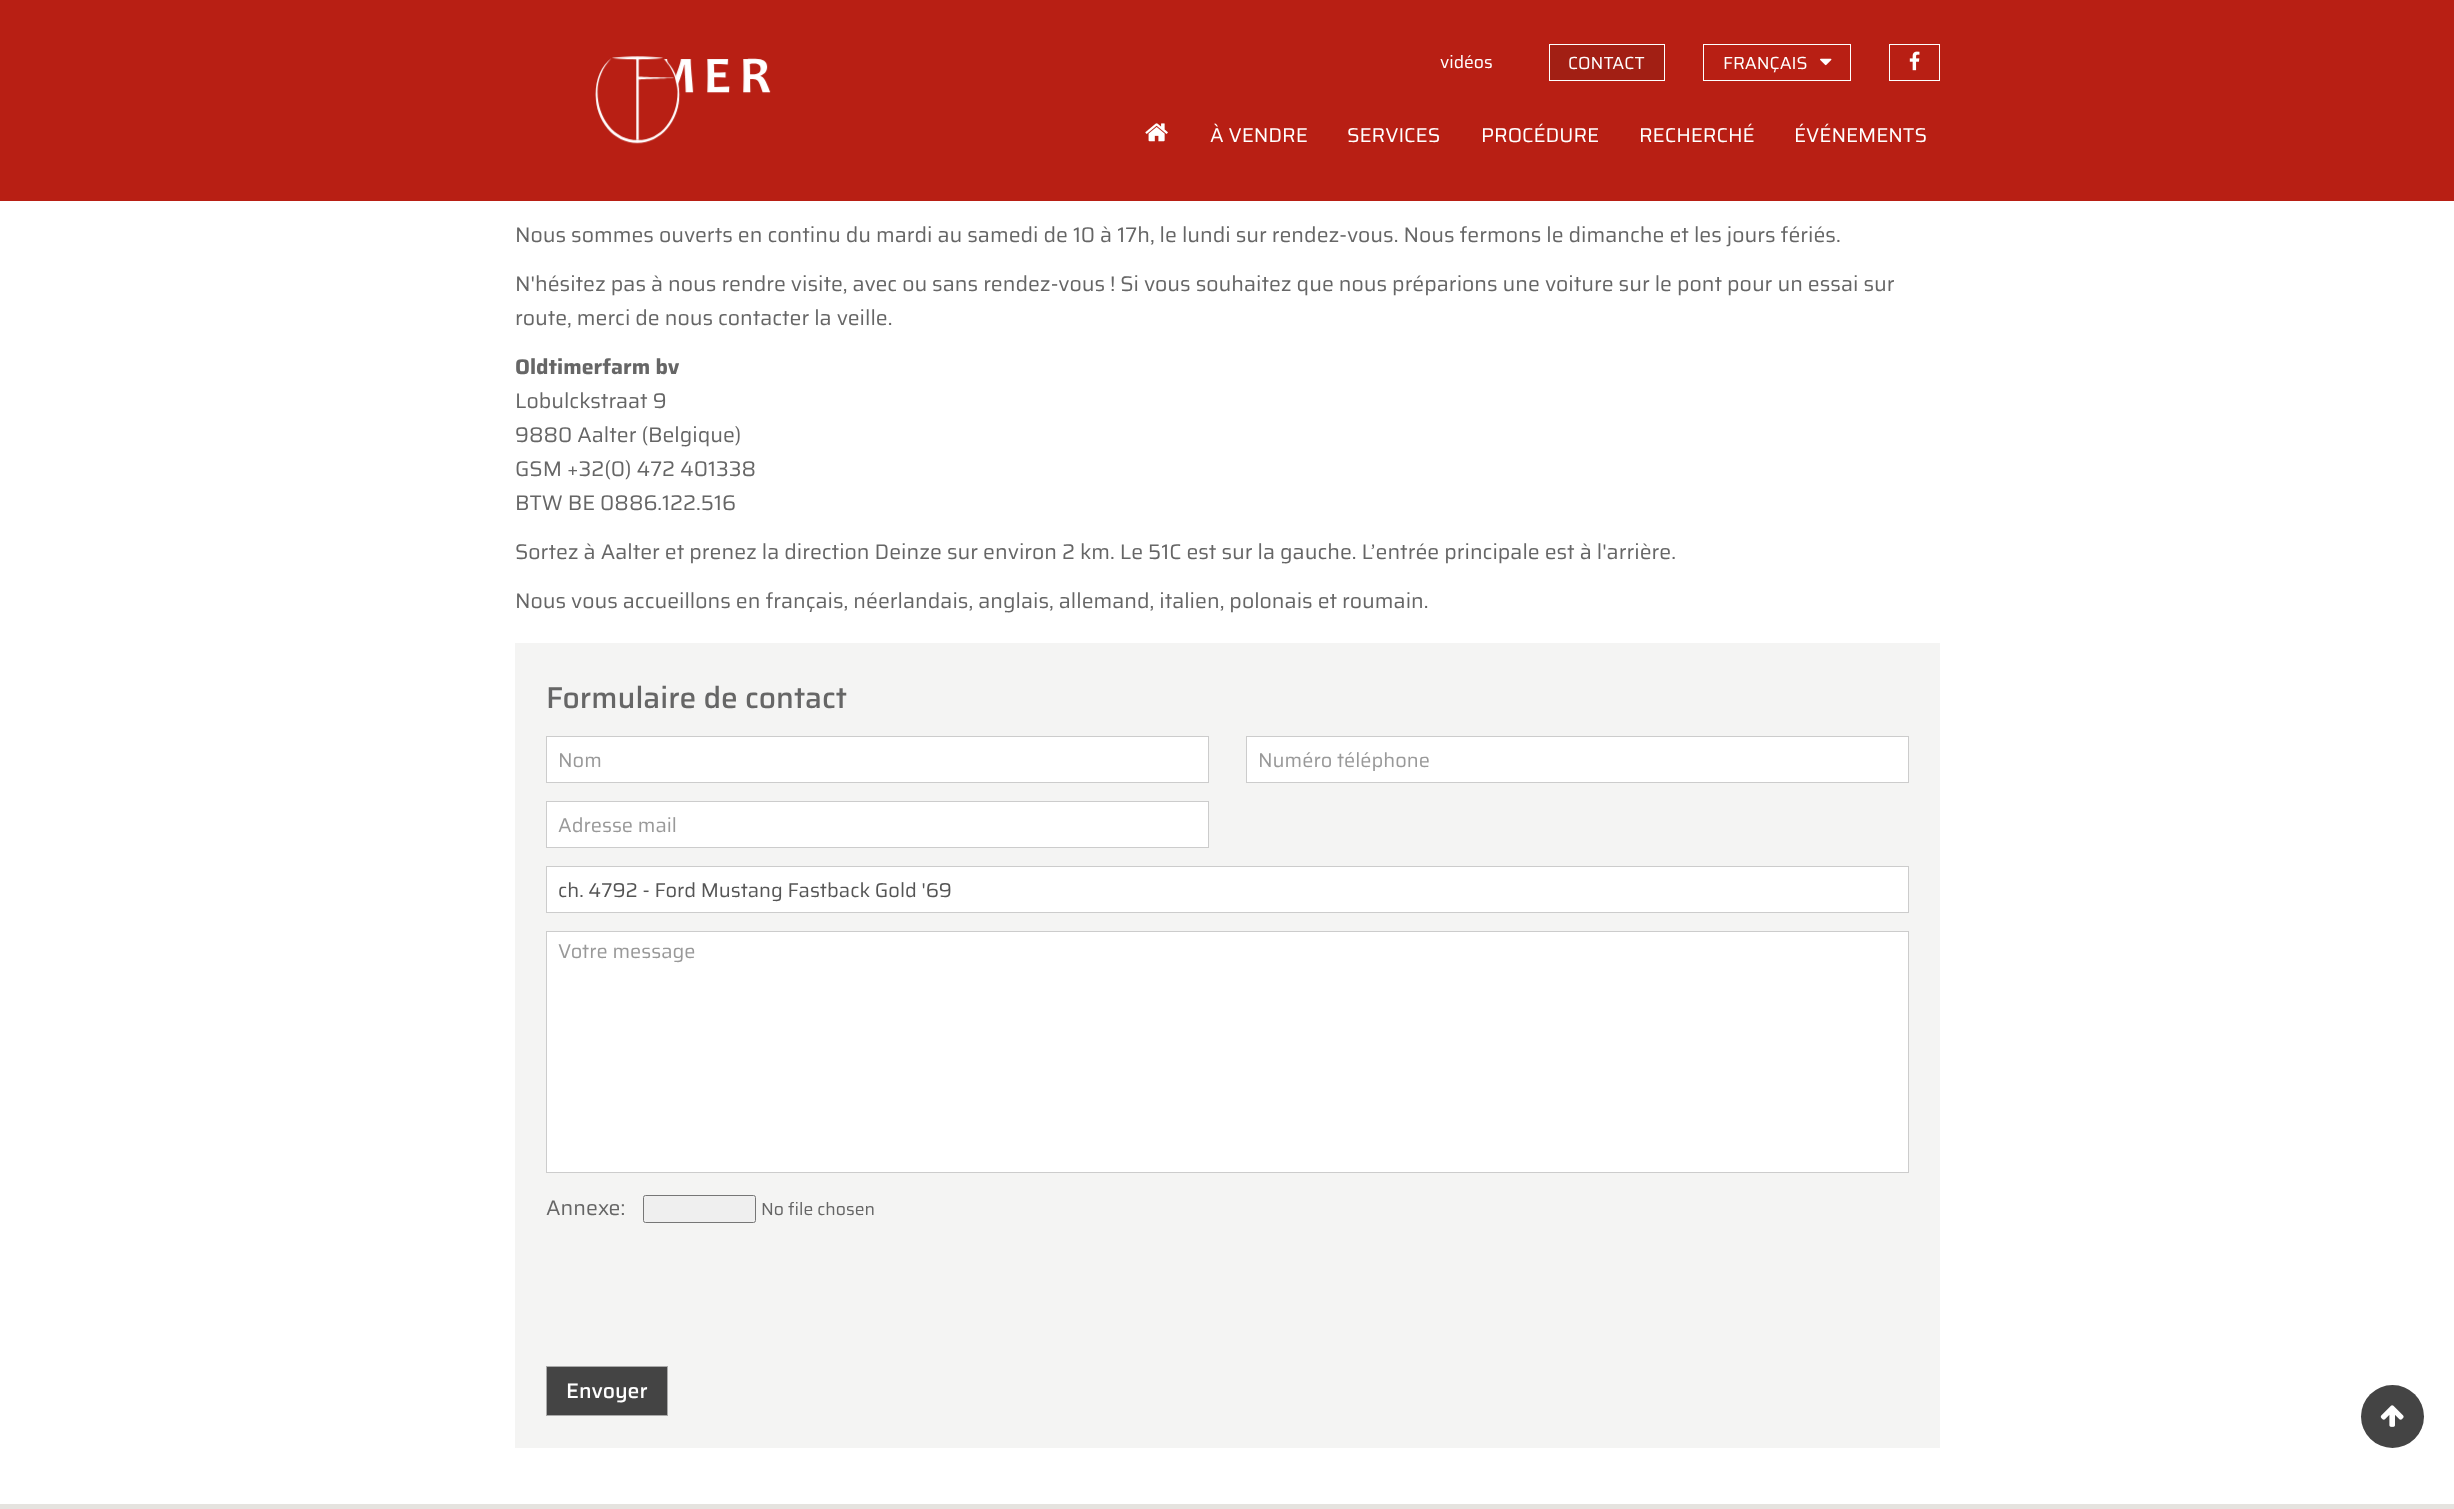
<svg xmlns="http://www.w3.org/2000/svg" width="2454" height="1509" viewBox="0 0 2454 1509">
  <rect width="100%" height="100%" fill="#ffffff"/>
  <rect x="0" y="0" width="2454" height="201" fill="#b81f14"/>
  <image x="595" y="56" width="176" height="88" href="img1.png"/>
  <text x="1440" y="68" font-family="Saira" font-size="17.5" fill="#ffffff">vidéos</text>
  <rect x="1549.5" y="44.5" width="115" height="36" fill="#a21f14" stroke="#ffffff"/>
  <text x="1568" y="69" font-family="Saira" font-size="17.5" fill="#ffffff">CONTACT</text>
  <rect x="1703.5" y="44.5" width="147" height="36" fill="none" stroke="#ffffff"/>
  <text x="1723" y="69" font-family="Saira" font-size="17.5" fill="#ffffff">FRANÇAIS</text>
  <image x="1820" y="58" width="12" height="8" href="img2.png"/>
  <rect x="1889.5" y="44.5" width="50" height="36" fill="none" stroke="#ffffff"/>
  <image x="1909" y="51" width="11" height="20" href="img3.png"/>
  <image x="1145" y="123" width="23" height="19" href="img4.png"/>
  <text x="1210" y="142" font-family="Saira" font-size="20" fill="#ffffff">À VENDRE</text>
  <text x="1347" y="142" font-family="Saira" font-size="20" fill="#ffffff">SERVICES</text>
  <text x="1481" y="142" font-family="Saira" font-size="20" fill="#ffffff">PROCÉDURE</text>
  <text x="1639" y="142" font-family="Saira" font-size="20" fill="#ffffff">RECHERCHÉ</text>
  <text x="1794" y="142" font-family="Saira" font-size="20" fill="#ffffff">ÉVÉNEMENTS</text>
  <text x="515" y="242" font-family="Saira" font-size="21.25" fill="#666666">Nous sommes ouverts en continu du mardi au samedi de 10 à 17h, le lundi sur rendez-vous. Nous fermons le dimanche et les jours fériés.</text>
  <text x="515" y="291" font-family="Saira" font-size="21.25" fill="#666666">N'hésitez pas à nous rendre visite, avec ou sans rendez-vous ! Si vous souhaitez que nous préparions une voiture sur le pont pour un essai sur</text>
  <text x="515" y="325" font-family="Saira" font-size="21.25" fill="#666666">route, merci de nous contacter la veille.</text>
  <text x="515" y="374" font-family="Saira" font-size="21.25" font-weight="bold" fill="#666666">Oldtimerfarm bv</text>
  <text x="515" y="408" font-family="Saira" font-size="21.25" fill="#666666">Lobulckstraat 9</text>
  <text x="515" y="442" font-family="Saira" font-size="21.25" fill="#666666">9880 Aalter (Belgique)</text>
  <text x="515" y="476" font-family="Saira" font-size="21.25" fill="#666666">GSM +32(0) 472 401338</text>
  <text x="515" y="510" font-family="Saira" font-size="21.25" fill="#666666">BTW BE 0886.122.516</text>
  <text x="515" y="559" font-family="Saira" font-size="21.25" fill="#666666">Sortez à Aalter et prenez la direction Deinze sur environ 2 km. Le 51C est sur la gauche. L’entrée principale est à l'arrière.</text>
  <text x="515" y="608" font-family="Saira" font-size="21.25" fill="#666666">Nous vous accueillons en français, néerlandais, anglais, allemand, italien, polonais et roumain.</text>
  <rect x="515" y="643" width="1425" height="805" fill="#f4f4f3"/>
  <text x="546" y="708" font-family="Saira" font-size="30" font-weight="500" fill="#666666">Formulaire de contact</text>
  <rect x="546.5" y="736.5" width="662" height="46" fill="#ffffff" stroke="#cccccc"/>
  <text x="558" y="767" font-family="Saira" font-size="20" fill="#999999">Nom</text>
  <rect x="1246.5" y="736.5" width="662" height="46" fill="#ffffff" stroke="#cccccc"/>
  <text x="1258" y="767" font-family="Saira" font-size="20" fill="#999999">Numéro téléphone</text>
  <rect x="546.5" y="801.5" width="662" height="46" fill="#ffffff" stroke="#cccccc"/>
  <text x="558" y="832" font-family="Saira" font-size="20" fill="#999999">Adresse mail</text>
  <rect x="546.5" y="866.5" width="1362" height="46" fill="#ffffff" stroke="#cccccc"/>
  <text x="558" y="897" font-family="Saira" font-size="20" fill="#555555">ch. 4792 - Ford Mustang Fastback Gold '69</text>
  <rect x="546.5" y="931.5" width="1362" height="241" fill="#ffffff" stroke="#cccccc"/>
  <text x="558" y="958" font-family="Saira" font-size="20" fill="#999999">Votre message</text>
  <text x="546" y="1215" font-family="Saira" font-size="21.25" fill="#666666">Annexe:</text>
  <rect x="643.5" y="1195.5" width="112" height="27" rx="2" fill="#efefef" stroke="#767676"/>
  <text x="761" y="1215" font-family="Saira" font-size="17.5" fill="#666666">No file chosen</text>
  <rect x="546.5" y="1366.5" width="121" height="49" fill="#444444" stroke="#aaaaaa"/>
  <text x="566" y="1398" font-family="Saira" font-size="21.25" font-weight="500" fill="#ffffff">Envoyer</text>
  <circle cx="2392.5" cy="1416.5" r="31.5" fill="#444444"/>
  <image x="2380" y="1405" width="24" height="22" href="img5.png"/>
  <rect x="0" y="1504" width="2454" height="5" fill="#e5e3df"/>
</svg>
